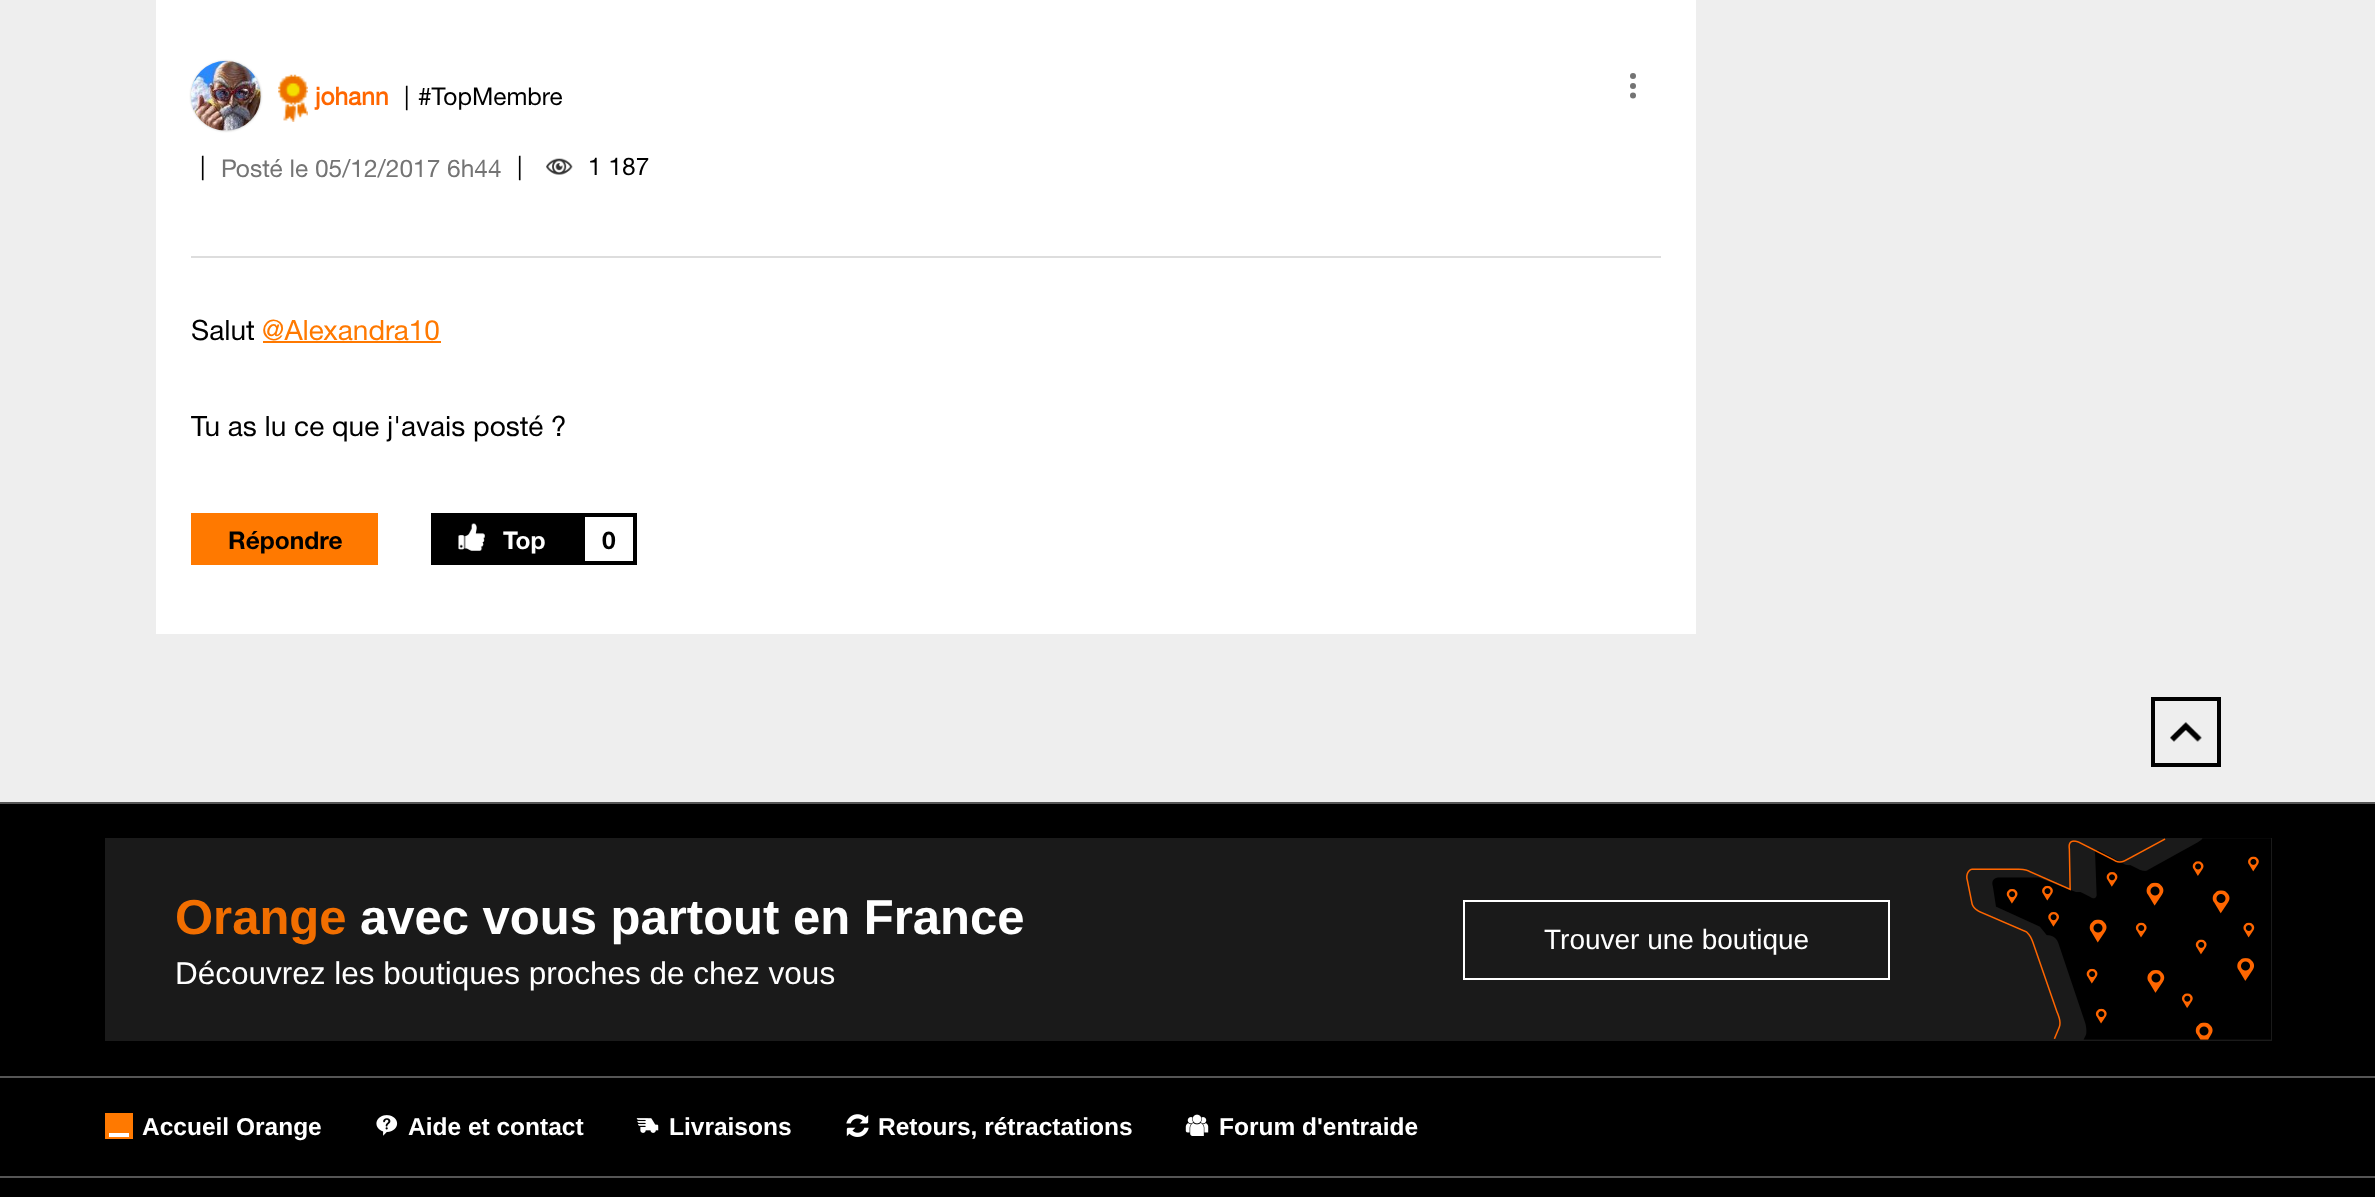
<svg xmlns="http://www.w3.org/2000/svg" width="2375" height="1197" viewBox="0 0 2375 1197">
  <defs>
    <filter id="blur1" x="-50%" y="-200%" width="200%" height="500%"><feGaussianBlur stdDeviation="1"/></filter>
  </defs>
  <rect width="100%" height="100%" fill="#eeeeee"/>
  <rect x="156" y="0" width="1540" height="634" fill="#ffffff"/>
  <rect x="191" y="256" width="1470" height="2" fill="#dddddd"/>
  <rect x="191" y="61" width="70" height="70" rx="35" fill="#c4c4c4" filter="url(#blur1)"/>
  <image x="191" y="60" width="70" height="71" href="img1.png"/>
  <image x="278" y="74" width="30" height="48" href="img2.png"/>
  <text x="315" y="105" font-family="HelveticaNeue" font-size="24.5" font-weight="bold" fill="#ff6600">johann</text>
  <text x="404" y="105" font-family="HelveticaNeue" font-size="24.5" fill="#000000">|</text>
  <text x="418" y="105" font-family="HelveticaNeue" font-size="24.5" fill="#000000">#TopMembre</text>
  <text x="200" y="175" font-family="HelveticaNeue" font-size="24.5" fill="#000000">|</text>
  <text x="221" y="177" font-family="HelveticaNeue" font-size="24.5" fill="#747474">Posté le 05/12/2017 6h44</text>
  <text x="517" y="175" font-family="HelveticaNeue" font-size="24.5" fill="#000000">|</text>
  <image x="546" y="158" width="27" height="17" href="img3.png"/>
  <text x="588" y="175" font-family="HelveticaNeue" font-size="24.5" fill="#000000">1 187</text>
  <circle cx="1633" cy="76" r="3" fill="#747474"/>
  <circle cx="1633" cy="86" r="3" fill="#747474"/>
  <circle cx="1633" cy="95.5" r="3" fill="#747474"/>
  <text x="191" y="340" font-family="HelveticaNeue" font-size="28" fill="#000000">Salut</text>
  <text x="262" y="340" font-family="HelveticaNeue" font-size="28" fill="#ff7900">@Alexandra10</text>
  <rect x="263" y="341" width="178" height="2" fill="#ff7900"/>
  <text x="191" y="436" font-family="HelveticaNeue" font-size="28" fill="#000000">Tu as lu ce que j'avais posté ?</text>
  <rect x="191" y="513" width="187" height="52" fill="#ff7900"/>
  <text x="228" y="549" font-family="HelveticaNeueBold" font-size="24.5" font-weight="bold" fill="#000000">Répondre</text>
  <rect x="431" y="513" width="150" height="52" fill="#000000"/>
  <image x="458" y="523" width="27" height="28" href="img4.png"/>
  <text x="503" y="549" font-family="HelveticaNeueBold" font-size="24.5" font-weight="bold" fill="#ffffff">Top</text>
  <rect x="583" y="515" width="52" height="48" fill="none" stroke="#000000" stroke-width="4"/>
  <text x="602" y="549" font-family="HelveticaNeueBold" font-size="24.5" font-weight="bold" fill="#000000">0</text>
  <image x="2170" y="722" width="32" height="20" href="img5.png"/>
  <rect x="2153" y="699" width="66" height="66" fill="none" stroke="#000000" stroke-width="4"/>
  <rect x="0" y="804" width="2375" height="272" fill="#000000"/>
  <rect x="0" y="802" width="2375" height="2" fill="#555555"/>
  <rect x="105" y="838" width="2167" height="203" fill="#1a1a1a"/>
  <image x="1966" y="838" width="305" height="202" href="img6.png"/>
  <text x="175" y="934" font-family="Liberation Sans" font-size="49" font-weight="bold" fill="#f16e00">Orange</text>
  <text x="360" y="934" font-family="Liberation Sans" font-size="49" font-weight="bold" fill="#ffffff">avec vous partout en France</text>
  <text x="175" y="984" font-family="Liberation Sans" font-size="31.5" fill="#ffffff">Découvrez les boutiques proches de chez vous</text>
  <rect x="1464" y="901" width="425" height="78" fill="none" stroke="#ffffff" stroke-width="2"/>
  <text x="1544" y="949" font-family="Liberation Sans" font-size="28" fill="#ffffff">Trouver une boutique</text>
  <rect x="0" y="1078" width="2375" height="98" fill="#000000"/>
  <rect x="0" y="1076" width="2375" height="2" fill="#555555"/>
  <rect x="105" y="1113" width="28" height="26" fill="#ff7900"/>
  <rect x="109" y="1133" width="20" height="4" fill="#ffffff"/>
  <text x="142" y="1135" font-family="Liberation Sans" font-size="24.5" font-weight="bold" fill="#ffffff">Accueil Orange</text>
  <image x="376" y="1115" width="22" height="21" href="img7.png"/>
  <text x="408" y="1135" font-family="Liberation Sans" font-size="24.5" font-weight="bold" fill="#ffffff">Aide et contact</text>
  <image x="636" y="1118" width="23" height="15" href="img8.png"/>
  <text x="669" y="1135" font-family="Liberation Sans" font-size="24.5" font-weight="bold" fill="#ffffff">Livraisons</text>
  <image x="846" y="1114" width="23" height="23" href="img9.png"/>
  <text x="878" y="1135" font-family="Liberation Sans" font-size="24.5" font-weight="bold" fill="#ffffff">Retours, rétractations</text>
  <image x="1185" y="1114" width="24" height="22" href="img10.png"/>
  <text x="1219" y="1135" font-family="Liberation Sans" font-size="24.5" font-weight="bold" fill="#ffffff">Forum d'entraide</text>
  <rect x="0" y="1178" width="2375" height="19" fill="#000000"/>
  <rect x="0" y="1176" width="2375" height="2" fill="#555555"/>
</svg>
